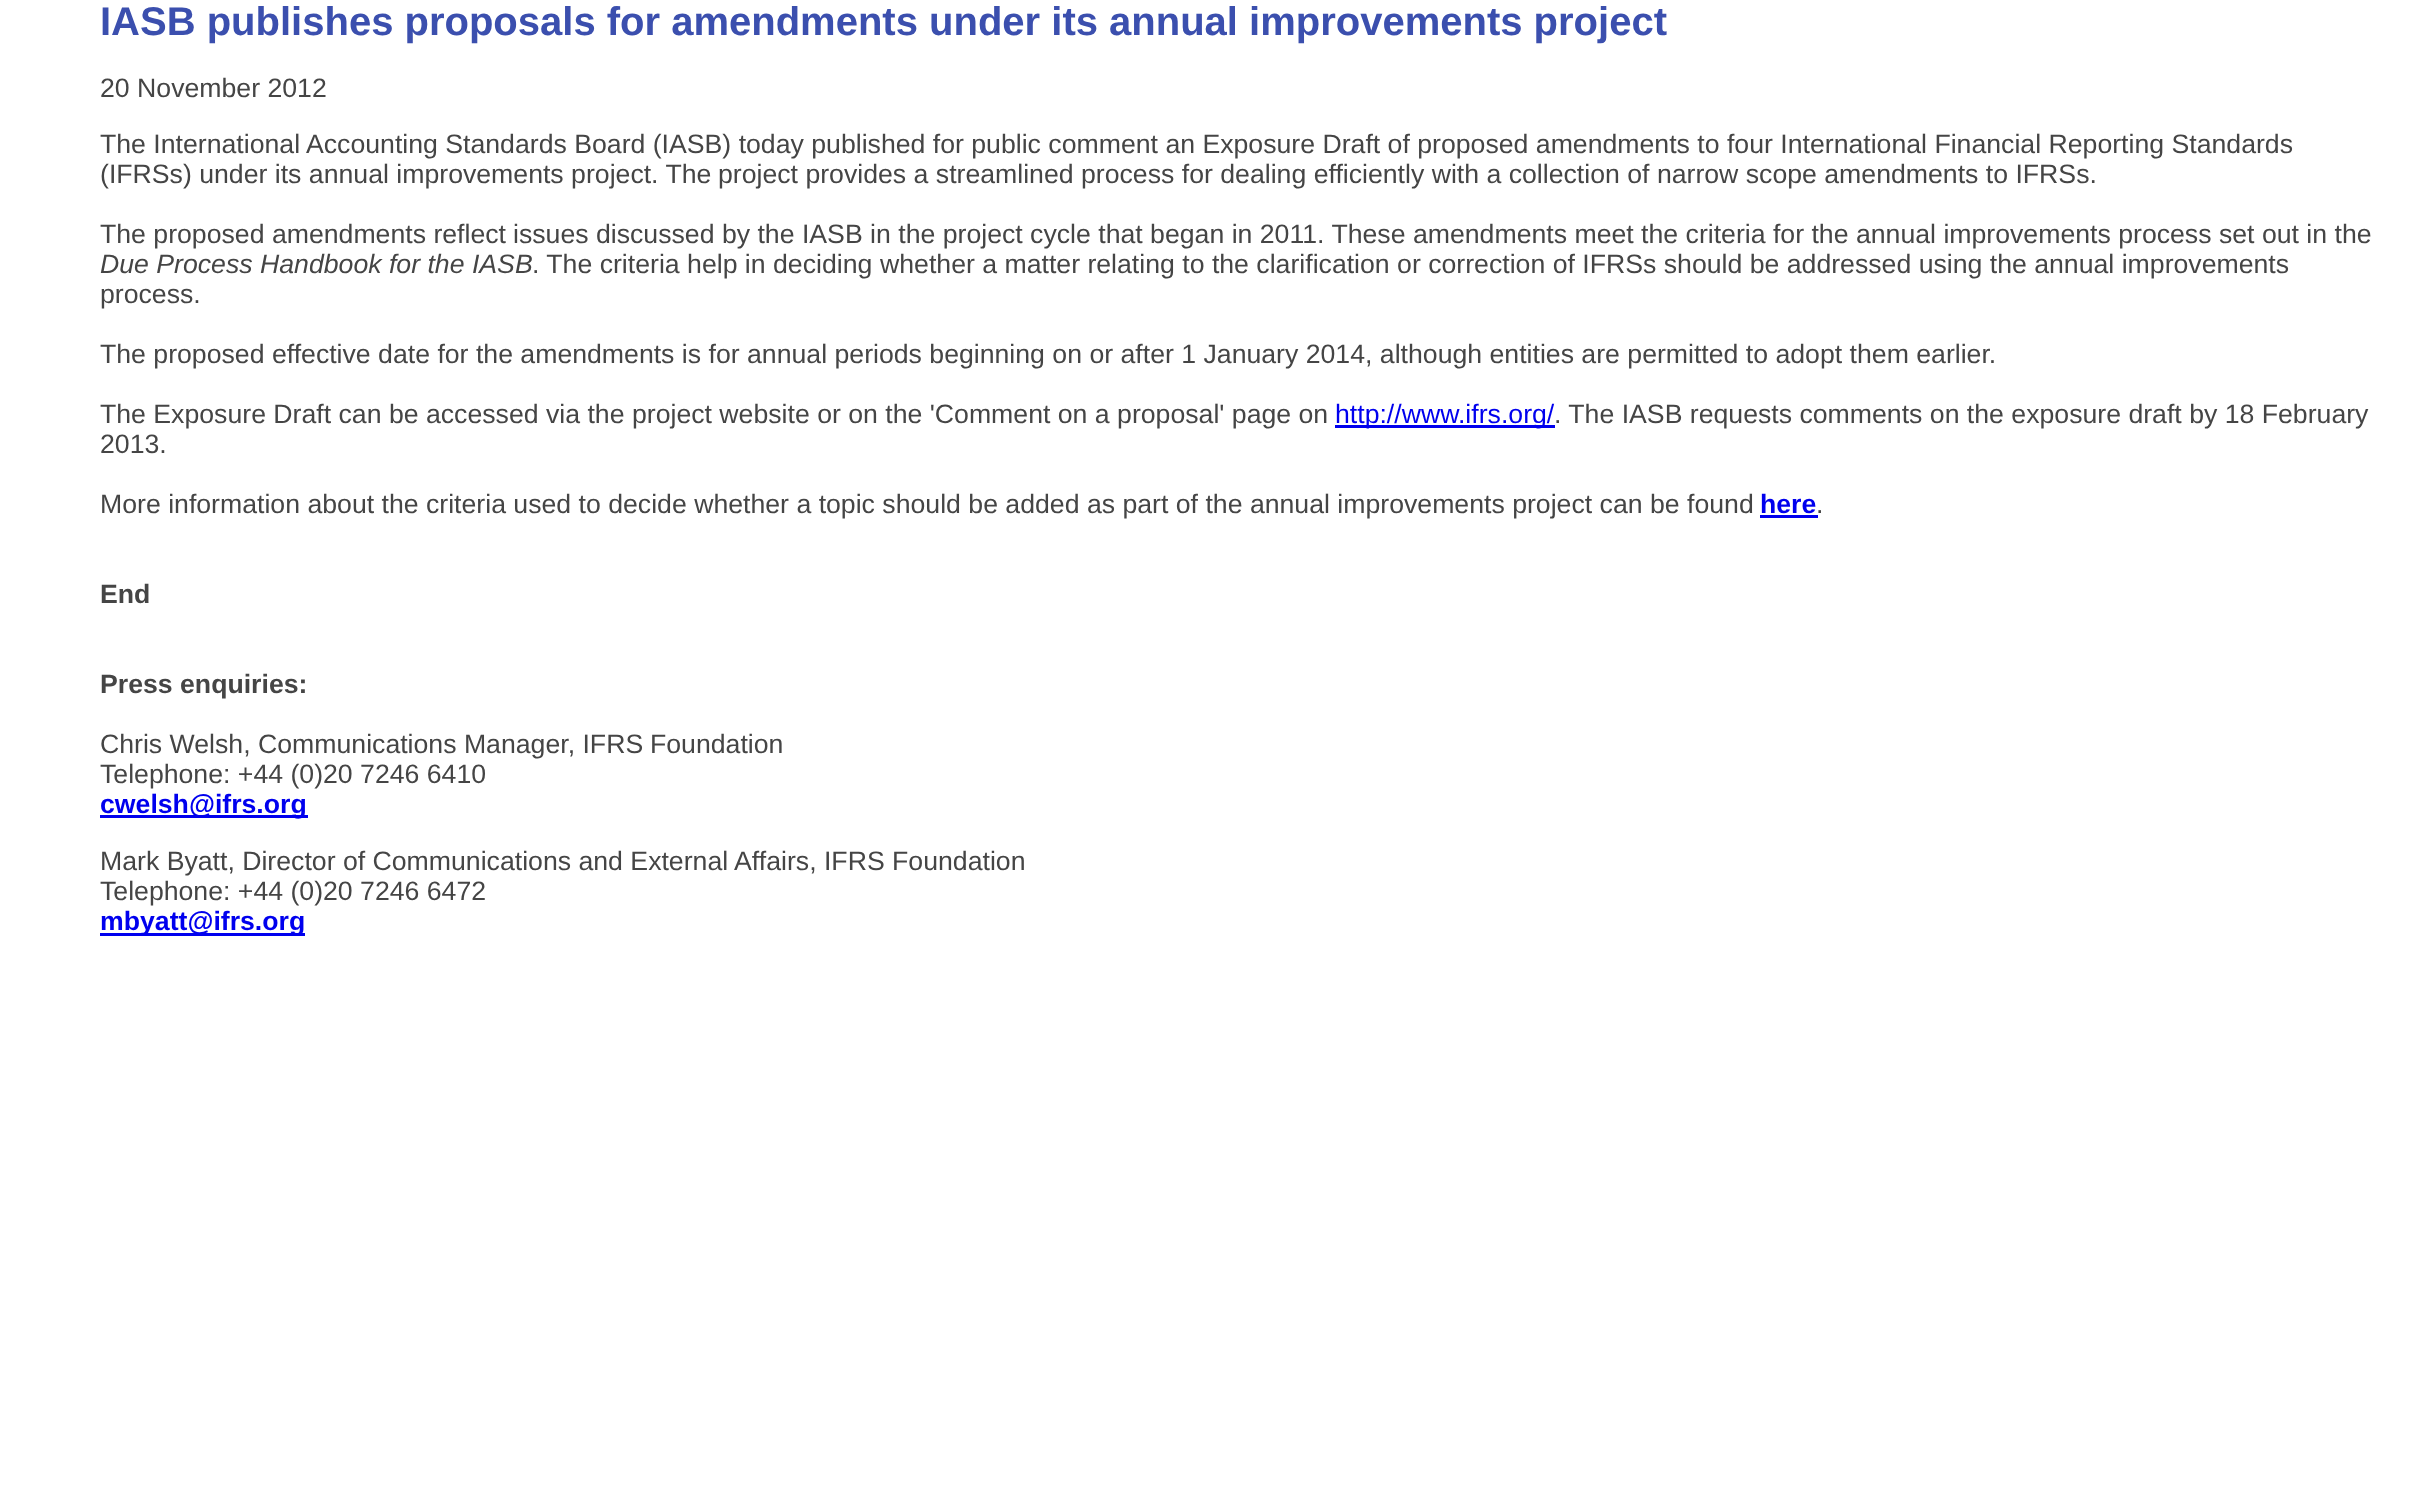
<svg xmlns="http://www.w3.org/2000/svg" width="2422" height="1496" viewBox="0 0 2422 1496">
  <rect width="100%" height="100%" fill="#ffffff"/>
  <text x="100" y="35" font-family="Liberation Sans" font-size="40" font-weight="bold" fill="#3b4fae">IASB publishes proposals for amendments under its annual improvements project</text>
  <text x="100" y="97" font-family="Liberation Sans" font-size="26.67" fill="#454545">20 November 2012</text>
  <text x="100" y="153" font-family="Liberation Sans" font-size="26.67" fill="#454545">The International Accounting Standards Board (IASB) today published for public comment an Exposure Draft of proposed amendments to four International Financial Reporting Standards</text>
  <text x="100" y="183" font-family="Liberation Sans" font-size="26.67" fill="#454545">(IFRSs) under its annual improvements project. The</text>
  <text x="718" y="183" font-family="Liberation Sans" font-size="26.67" fill="#454545">project provides a streamlined process for dealing efficiently with a collection of narrow scope amendments to IFRSs.</text>
  <text x="100" y="243" font-family="Liberation Sans" font-size="26.67" fill="#454545">The proposed amendments reflect</text>
  <text x="513" y="243" font-family="Liberation Sans" font-size="26.67" fill="#454545">issues discussed by the IASB in the project cycle that began in 2011. These amendments meet the criteria for the annual improvements process set out in the</text>
  <text x="100" y="273" font-family="Liberation Sans" font-size="26.67" font-style="italic" fill="#454545">Due Process Handbook for the IASB</text>
  <text x="532" y="273" font-family="Liberation Sans" font-size="26.67" fill="#454545">. The criteria help in deciding</text>
  <text x="880" y="273" font-family="Liberation Sans" font-size="26.67" fill="#454545">whether a matter relating to the clarification or correction of IFRSs should be addressed using the annual improvements</text>
  <text x="100" y="303" font-family="Liberation Sans" font-size="26.67" fill="#454545">process.</text>
  <text x="100" y="363" font-family="Liberation Sans" font-size="26.67" fill="#454545">The proposed effective date for the amendments is for annual periods beginning on or after 1 January 2014, although entities are permitted to adopt them earlier.</text>
  <text x="100" y="423" font-family="Liberation Sans" font-size="26.67" fill="#454545">The Exposure Draft can be accessed via the project website or on the 'Comment on a proposal' page on</text>
  <rect x="1335" y="425" width="220" height="3" fill="#0000ee"/>
  <text x="1335" y="423" font-family="Liberation Sans" font-size="26.67" fill="#0000ee">http://www.ifrs.org/</text>
  <text x="1554" y="423" font-family="Liberation Sans" font-size="26.67" fill="#454545">. The IASB requests comments on the exposure draft by 18 February</text>
  <text x="100" y="453" font-family="Liberation Sans" font-size="26.67" fill="#454545">2013.</text>
  <text x="100" y="513" font-family="Liberation Sans" font-size="26.67" fill="#454545">More information about the criteria used to decide whether a topic should be added as part of the annual improvements project can be found</text>
  <text x="1760" y="513" font-family="Liberation Sans" font-size="26.67" font-weight="bold" fill="#0000ee">here</text>
  <rect x="1760" y="515" width="58" height="3" fill="#0000ee"/>
  <text x="1816" y="513" font-family="Liberation Sans" font-size="26.67" fill="#454545">.</text>
  <text x="100" y="603" font-family="Liberation Sans" font-size="26.67" font-weight="bold" fill="#454545">End</text>
  <text x="100" y="693" font-family="Liberation Sans" font-size="26.67" font-weight="bold" fill="#454545">Press enquiries:</text>
  <text x="100" y="753" font-family="Liberation Sans" font-size="26.67" fill="#454545">Chris Welsh, Communications Manager, IFRS</text>
  <text x="650" y="753" font-family="Liberation Sans" font-size="26.67" fill="#454545">Foundation</text>
  <text x="100" y="783" font-family="Liberation Sans" font-size="26.67" fill="#454545">Telephone: +44 (0)20 7246 6410</text>
  <rect x="100" y="815" width="208" height="3" fill="#0000ee"/>
  <text x="100" y="813" font-family="Liberation Sans" font-size="26.67" font-weight="bold" fill="#0000ee">cwelsh@ifrs.org</text>
  <text x="100" y="870" font-family="Liberation Sans" font-size="26.67" fill="#454545">Mark Byatt, Director of Communications and External Affairs, IFRS Foundation</text>
  <text x="100" y="900" font-family="Liberation Sans" font-size="26.67" fill="#454545">Telephone: +44 (0)20 7246 6472</text>
  <rect x="100" y="933" width="205" height="3" fill="#0000ee"/>
  <text x="100" y="930" font-family="Liberation Sans" font-size="26.67" font-weight="bold" fill="#0000ee">mbyatt@ifrs.org</text>
</svg>
